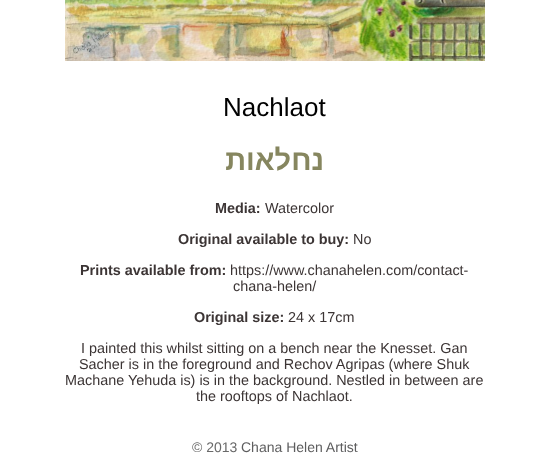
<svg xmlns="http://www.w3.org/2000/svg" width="549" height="465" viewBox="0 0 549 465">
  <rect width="100%" height="100%" fill="#ffffff"/>
  <image x="65" y="0" width="420" height="61" href="img1.png"/>
  <text x="223" y="116" font-family="Liberation Sans" font-size="26" fill="#000000">Nachlaot</text>
  <text x="324" y="170" font-family="Liberation Sans" font-size="29" font-weight="bold" direction="rtl" fill="#86865f">נחלאות</text>
  <text x="215" y="213" font-family="Liberation Sans" font-size="14.4" font-weight="bold" fill="#3c3535">Media:</text>
  <text x="265" y="213" font-family="Liberation Sans" font-size="14.4" fill="#3c3535">Watercolor</text>
  <text x="178" y="244" font-family="Liberation Sans" font-size="14.4" font-weight="bold" fill="#3c3535">Original available to buy:</text>
  <text x="353" y="244" font-family="Liberation Sans" font-size="14.4" fill="#3c3535">No</text>
  <text x="80" y="275" font-family="Liberation Sans" font-size="14.4" font-weight="bold" fill="#3c3535">Prints available from:</text>
  <text x="230" y="275" font-family="Liberation Sans" font-size="14.4" fill="#3c3535">https://www.chanahelen.com/contact-</text>
  <text x="233" y="291" font-family="Liberation Sans" font-size="14.4" fill="#3c3535">chana-helen/</text>
  <text x="194" y="322" font-family="Liberation Sans" font-size="14.4" font-weight="bold" fill="#3c3535">Original size:</text>
  <text x="288" y="322" font-family="Liberation Sans" font-size="14.4" fill="#3c3535">24 x 17cm</text>
  <text x="81" y="353" font-family="Liberation Sans" font-size="14.4" fill="#3c3535">I painted this whilst sitting on a bench near the Knesset. Gan</text>
  <text x="79" y="369" font-family="Liberation Sans" font-size="14.4" fill="#3c3535">Sacher is in the foreground and Rechov Agripas (where Shuk</text>
  <text x="65" y="385" font-family="Liberation Sans" font-size="14.4" fill="#3c3535">Machane Yehuda is) is in the background. Nestled in between are</text>
  <text x="196" y="401" font-family="Liberation Sans" font-size="14.4" fill="#3c3535">the rooftops of Nachlaot.</text>
  <text x="192" y="452" font-family="Liberation Sans" font-size="14" fill="#696969">© 2013</text>
  <text x="241" y="452" font-family="Liberation Sans" font-size="14" fill="#5d5d5e">Chana Helen Artist</text>
</svg>
